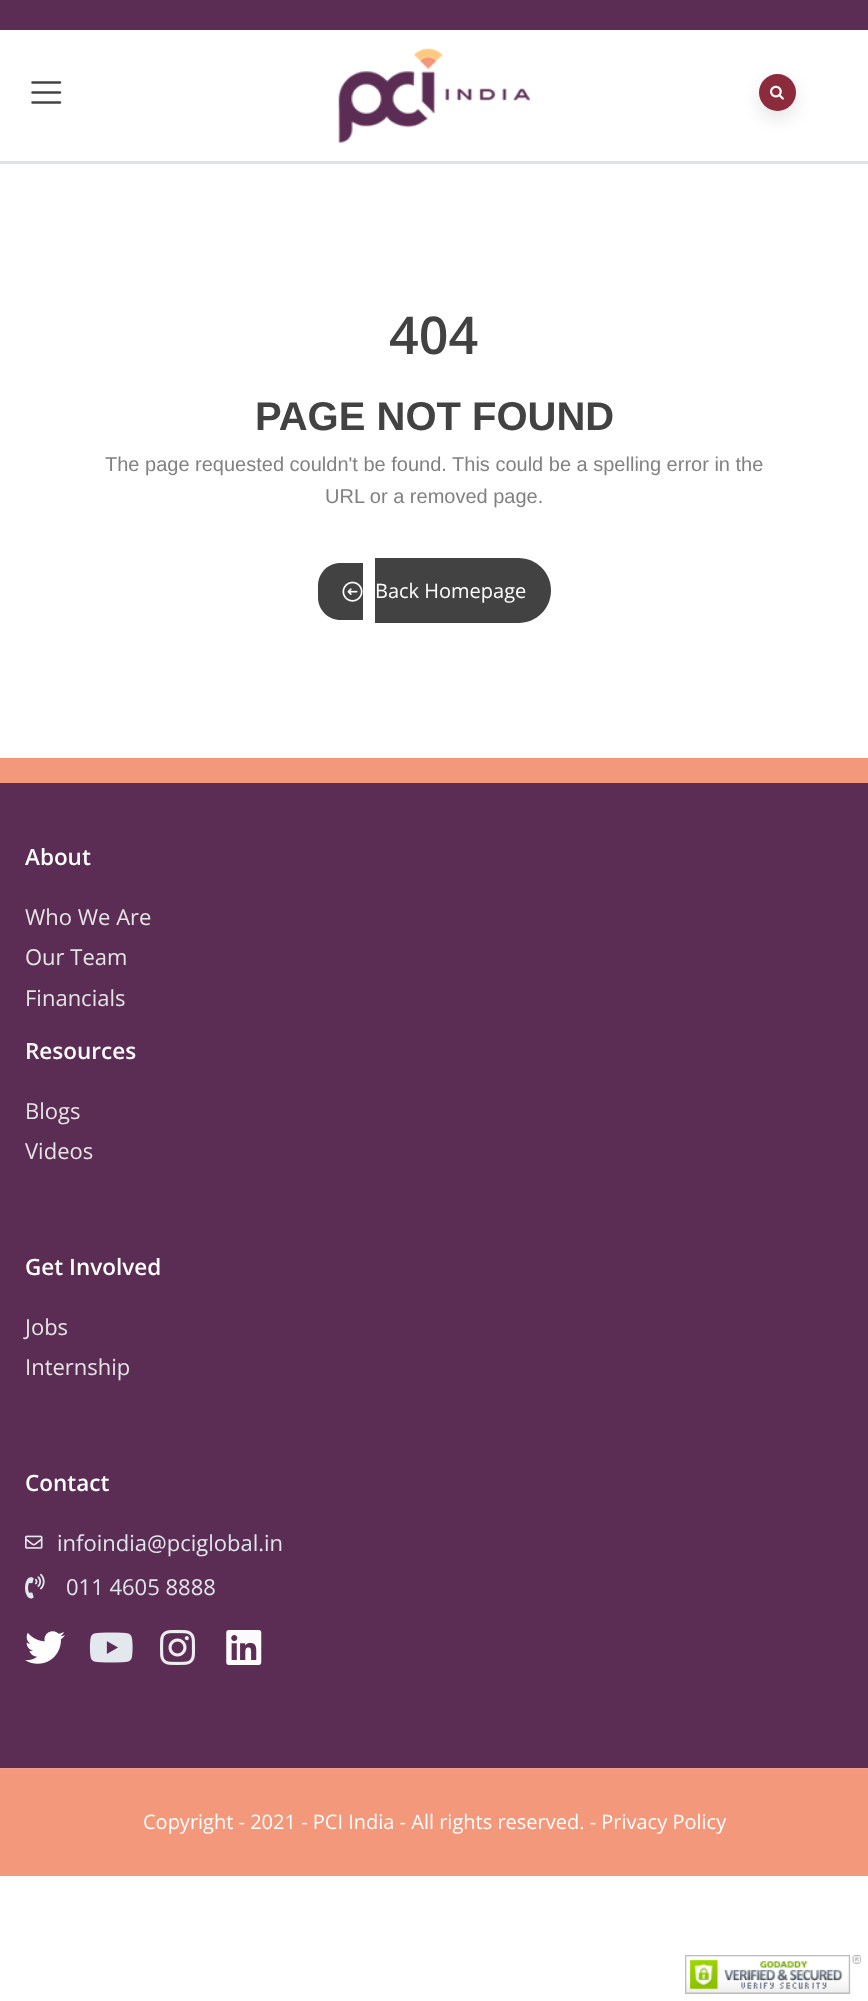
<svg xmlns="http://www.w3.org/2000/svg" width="868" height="2001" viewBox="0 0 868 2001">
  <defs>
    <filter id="blur1" x="-50%" y="-200%" width="200%" height="500%"><feGaussianBlur stdDeviation="9"/></filter>
  </defs>
  <rect width="100%" height="100%" fill="#ffffff"/>
  <rect x="0" y="161" width="868" height="3" fill="#dee2e6"/>
  <rect x="0" y="0" width="868" height="30" fill="#5b2c54"/>
  <image x="31" y="81" width="31" height="23" href="img1.png"/>
  <image x="338" y="48" width="192" height="95" href="img2.png"/>
  <rect x="759" y="81" width="37" height="38" rx="18.5" fill="#000000" fill-opacity="0.1" filter="url(#blur1)"/>
  <circle cx="777.5" cy="92.5" r="18.5" fill="#8c2b3c"/>
  <image x="770" y="85" width="14" height="15" href="img3.png"/>
  <text x="389" y="354" font-family="Open Sans" font-size="52" font-weight="600" fill="#424242">404</text>
  <text x="255" y="430" font-family="Liberation Sans" font-size="40" font-weight="bold" fill="#424242">PAGE NOT FOUND</text>
  <text x="105" y="471" font-family="Liberation Sans" font-size="20" fill="#818181">The page requested couldn't be found. This could be a spelling error in the</text>
  <text x="325" y="503" font-family="Liberation Sans" font-size="20" fill="#818181">URL or a removed page.</text>
  <path d="M340.5 563H363V620H340.5C328 620 318 610 318 597.5V585.5C318 573 328 563 340.5 563Z" fill="#424242"/>
  <image x="342" y="581" width="21" height="21" href="img4.png"/>
  <path d="M375 558H518.5C536.5 558 551 572.5 551 590.5C551 608.5 536.5 623 518.5 623H375Z" fill="#424242"/>
  <text x="375" y="598" font-family="Open Sans" font-size="20" fill="#ffffff">Back Homepage</text>
  <rect x="0" y="783" width="868" height="985" fill="#5b2c54"/>
  <rect x="0" y="758" width="868" height="25" fill="#f3987a"/>
  <text x="25" y="865" font-family="Open Sans" font-size="22.5" font-weight="600" fill="#ffffff">About</text>
  <text x="25" y="925" font-family="Open Sans" font-size="22" fill="#e4e4e4">Who We Are</text>
  <text x="25" y="965" font-family="Open Sans" font-size="22" fill="#e4e4e4">Our Team</text>
  <text x="25" y="1006" font-family="Open Sans" font-size="22" fill="#e4e4e4">Financials</text>
  <text x="25" y="1059" font-family="Open Sans" font-size="22.5" font-weight="600" fill="#ffffff">Resources</text>
  <text x="25" y="1119" font-family="Open Sans" font-size="22" fill="#e4e4e4">Blogs</text>
  <text x="25" y="1159" font-family="Open Sans" font-size="22" fill="#e4e4e4">Videos</text>
  <text x="25" y="1275" font-family="Open Sans" font-size="22.5" font-weight="600" fill="#ffffff">Get Involved</text>
  <text x="25" y="1335" font-family="Open Sans" font-size="22" fill="#e4e4e4">Jobs</text>
  <text x="25" y="1375" font-family="Open Sans" font-size="22" fill="#e4e4e4">Internship</text>
  <text x="25" y="1491" font-family="Open Sans" font-size="22.5" font-weight="600" fill="#ffffff">Contact</text>
  <image x="25" y="1535" width="18" height="14" href="img5.png"/>
  <text x="57" y="1551" font-family="Open Sans" font-size="22" fill="#dfe5eb">infoindia@pciglobal.in</text>
  <image x="25" y="1573" width="20" height="26" href="img6.png"/>
  <text x="66" y="1595" font-family="Open Sans" font-size="22" fill="#dfe5eb">011 4605 8888</text>
  <image x="25" y="1631" width="40" height="33" href="img7.png"/>
  <image x="89" y="1632" width="44" height="31" href="img8.png"/>
  <image x="160" y="1629" width="36" height="36" href="img9.png"/>
  <image x="226" y="1630" width="36" height="35" href="img10.png"/>
  <rect x="0" y="1769" width="868" height="107" fill="#f3987a"/>
  <rect x="0" y="1768" width="868" height="1" fill="#f4a287"/>
  <text x="143" y="1829" font-family="Open Sans" font-size="20" fill="#ffffff">Copyright - 2021 - PCI India - All rights reserved. - Privacy Policy</text>
  <image x="685" y="1955" width="176" height="39" href="img11.png"/>
</svg>
